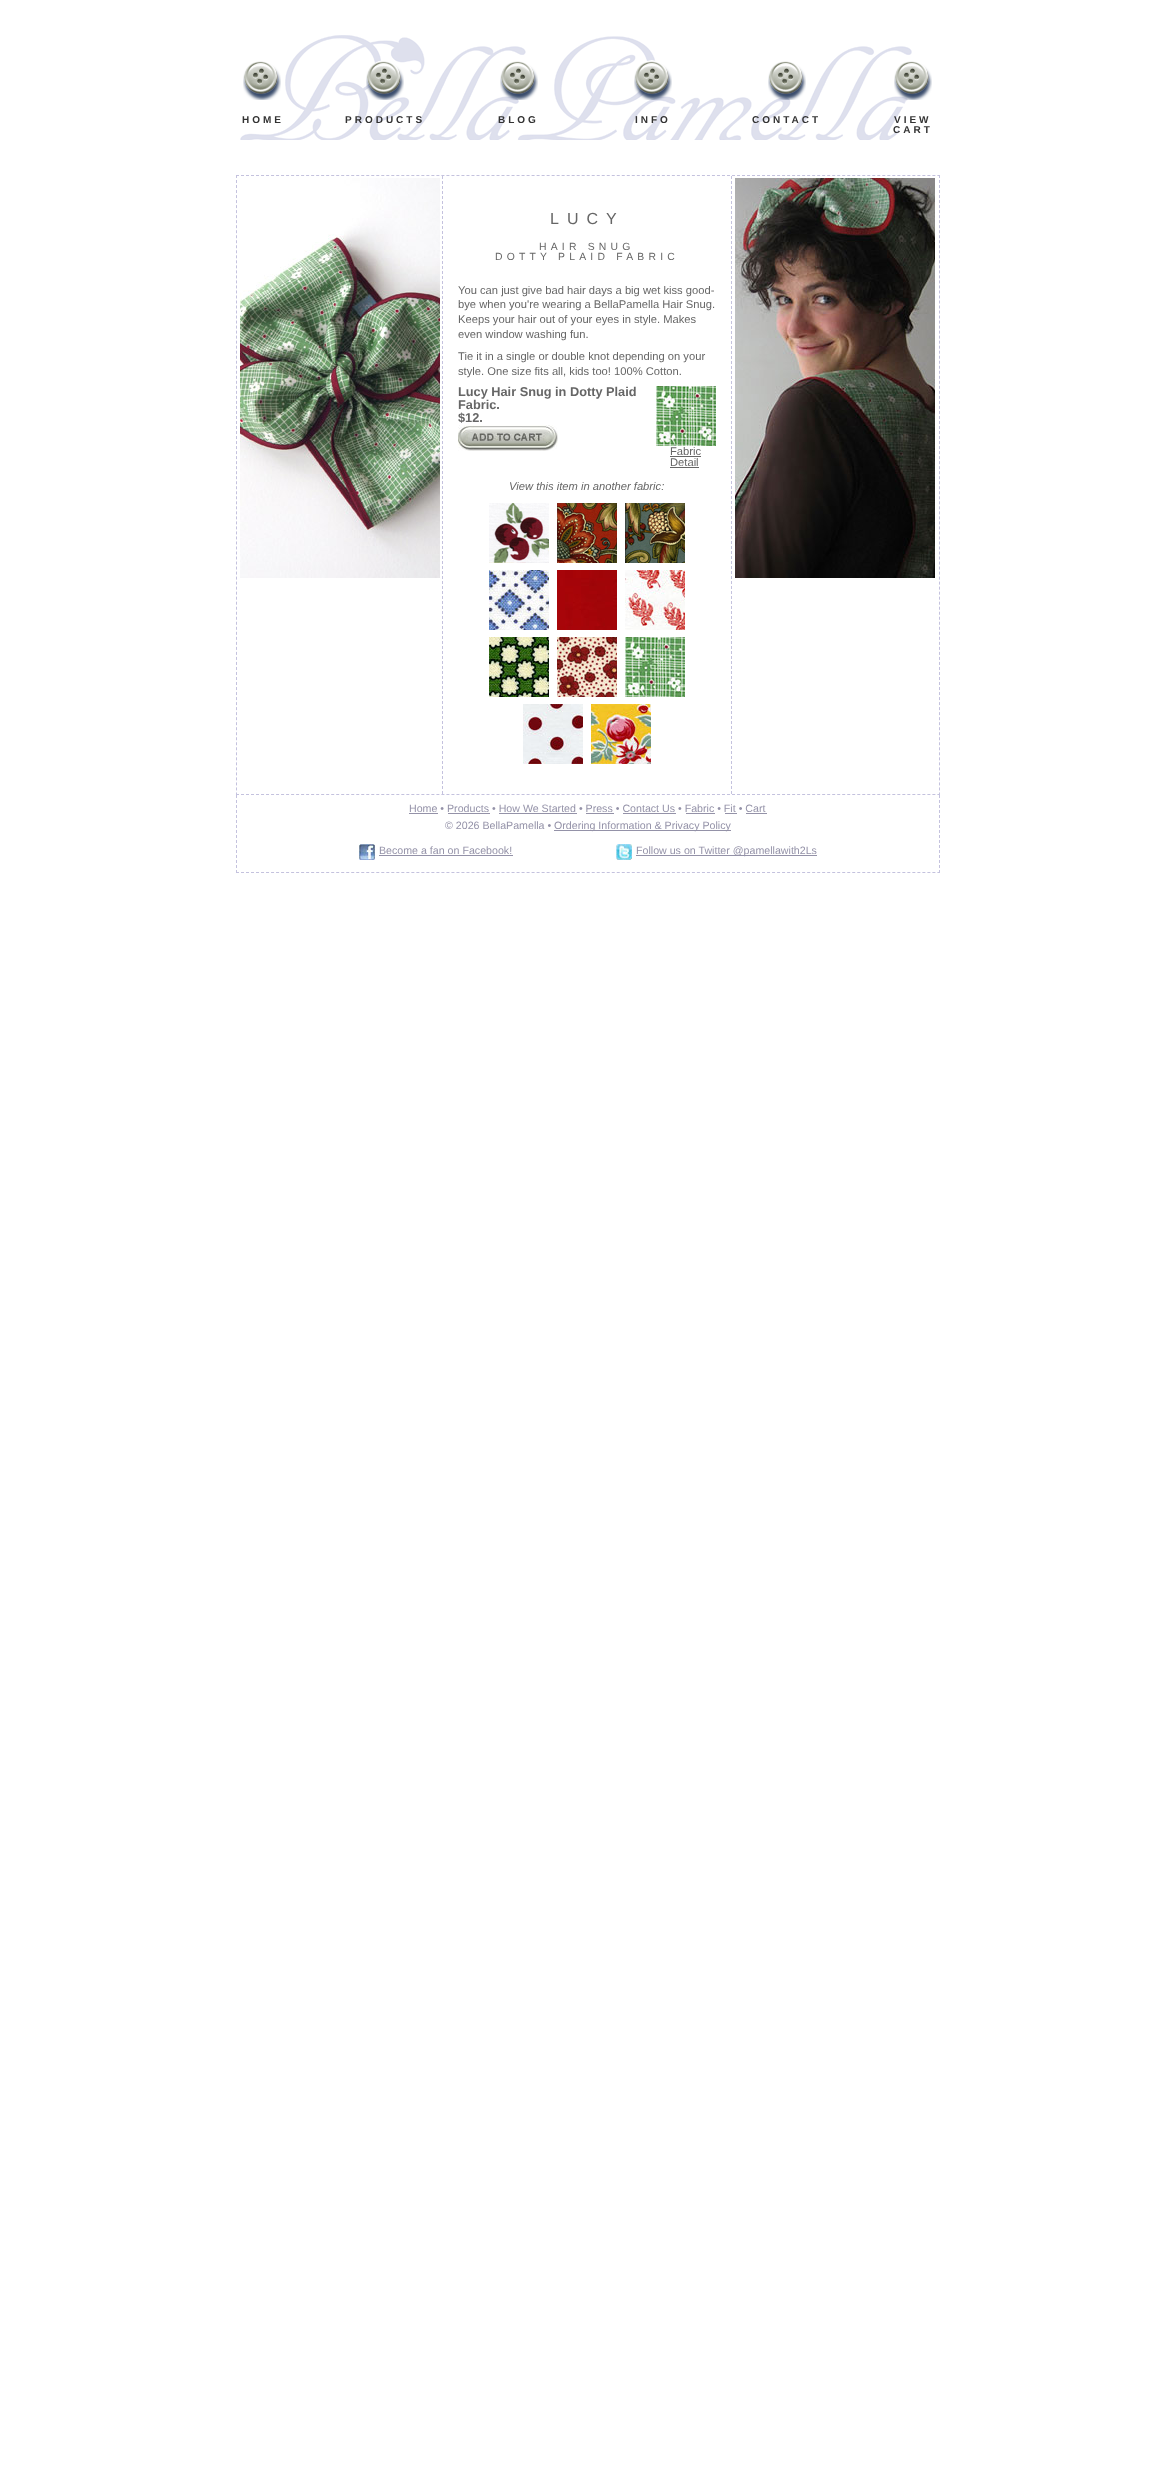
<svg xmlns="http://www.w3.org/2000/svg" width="1176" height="2471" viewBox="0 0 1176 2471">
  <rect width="100%" height="100%" fill="#ffffff"/>
  <image x="240" y="35" width="672" height="105" href="img1.png"/>
  <image x="243" y="61" width="38" height="39" href="img2.png"/>
  <text x="242" y="123" font-family="Liberation Sans" font-size="10" font-weight="bold" letter-spacing="3" fill="#333333">HOME</text>
  <image x="366" y="60" width="38" height="40" href="img3.png"/>
  <text x="345" y="123" font-family="Liberation Sans" font-size="10" font-weight="bold" letter-spacing="3" fill="#333333">PRODUCTS</text>
  <image x="500" y="61" width="38" height="39" href="img4.png"/>
  <text x="498" y="123" font-family="Liberation Sans" font-size="10" font-weight="bold" letter-spacing="3" fill="#333333">BLOG</text>
  <image x="634" y="60" width="38" height="40" href="img5.png"/>
  <text x="635" y="123" font-family="Liberation Sans" font-size="10" font-weight="bold" letter-spacing="3" fill="#333333">INFO</text>
  <image x="768" y="61" width="38" height="39" href="img6.png"/>
  <text x="752" y="123" font-family="Liberation Sans" font-size="10" font-weight="bold" letter-spacing="3" fill="#333333">CONTACT</text>
  <image x="894" y="61" width="38" height="39" href="img7.png"/>
  <text x="894" y="123" font-family="Liberation Sans" font-size="10" font-weight="bold" letter-spacing="3" fill="#333333">VIEW</text>
  <text x="893" y="133" font-family="Liberation Sans" font-size="10" font-weight="bold" letter-spacing="3" fill="#333333">CART</text>
  <path d="M236 175.5H940" fill="none" stroke="#c4c2de" stroke-dasharray="3 2.01"/>
  <path d="M939.5 175V795" fill="none" stroke="#c4c2de" stroke-dasharray="3 2.02"/>
  <path d="M236 794.5H940" fill="none" stroke="#c4c2de" stroke-dasharray="3 2.01"/>
  <path d="M236.5 175V795" fill="none" stroke="#c4c2de" stroke-dasharray="3 2.02"/>
  <image x="240" y="178" width="200" height="400" href="img8.png"/>
  <path d="M731.5 176V794" fill="none" stroke="#c4c2de" stroke-dasharray="3 2"/>
  <path d="M442.5 176V794" fill="none" stroke="#c4c2de" stroke-dasharray="3 2"/>
  <text x="550" y="224" font-family="Liberation Sans" font-size="16" letter-spacing="8" fill="#666666">LUCY</text>
  <text x="539" y="250" font-family="Liberation Sans" font-size="10.4" letter-spacing="4.2" fill="#666666">HAIR SNUG</text>
  <text x="495" y="260" font-family="Liberation Sans" font-size="10.4" letter-spacing="4.2" fill="#666666">DOTTY PLAID FABRIC</text>
  <text x="458" y="294" font-family="Liberation Sans" font-size="11.2" fill="#666666">You can just give bad hair days a big wet kiss good-</text>
  <text x="458" y="308" font-family="Liberation Sans" font-size="11.2" fill="#666666">bye when you're wearing a BellaPamella Hair Snug.</text>
  <text x="458" y="323" font-family="Liberation Sans" font-size="11.2" fill="#666666">Keeps your hair out of your eyes in style. Makes</text>
  <text x="458" y="338" font-family="Liberation Sans" font-size="11.2" fill="#666666">even window washing fun.</text>
  <text x="458" y="360" font-family="Liberation Sans" font-size="11.2" fill="#666666">Tie it in a single or double knot depending on your</text>
  <text x="458" y="375" font-family="Liberation Sans" font-size="11.2" fill="#666666">style. One size fits all, kids too! 100% Cotton.</text>
  <text x="458" y="396" font-family="Liberation Sans" font-size="12.75" font-weight="bold" fill="#666666">Lucy Hair Snug in Dotty Plaid</text>
  <text x="458" y="409" font-family="Liberation Sans" font-size="12.75" font-weight="bold" fill="#666666">Fabric.</text>
  <text x="458" y="422" font-family="Liberation Sans" font-size="12.75" font-weight="bold" fill="#666666">$12.</text>
  <image x="458" y="425" width="100" height="26" href="img9.png"/>
  <image x="656" y="386" width="60" height="60" href="img10.png"/>
  <text x="670" y="455" font-family="Liberation Sans" font-size="11.2" fill="#666666">Fabric</text>
  <rect x="670" y="456" width="31" height="1" fill="#666666"/>
  <text x="670" y="466" font-family="Liberation Sans" font-size="11.2" fill="#666666">Detail</text>
  <rect x="670" y="467" width="29" height="1" fill="#666666"/>
  <text x="509" y="490" font-family="Liberation Sans" font-size="11.2" font-style="italic" fill="#666666">View this item in another fabric:</text>
  <image x="489" y="503" width="60" height="60" href="img11.png"/>
  <image x="557" y="503" width="60" height="60" href="img12.png"/>
  <image x="625" y="503" width="60" height="60" href="img13.png"/>
  <image x="489" y="570" width="60" height="60" href="img14.png"/>
  <image x="557" y="570" width="60" height="60" href="img15.png"/>
  <image x="625" y="570" width="60" height="60" href="img16.png"/>
  <image x="489" y="637" width="60" height="60" href="img17.png"/>
  <image x="557" y="637" width="60" height="60" href="img18.png"/>
  <image x="625" y="637" width="60" height="60" href="img10.png"/>
  <image x="523" y="704" width="60" height="60" href="img19.png"/>
  <image x="591" y="704" width="60" height="60" href="img20.png"/>
  <image x="735" y="178" width="200" height="400" href="img21.png"/>
  <path d="M939.5 795V873" fill="none" stroke="#c4c2de" stroke-dasharray="3 2"/>
  <path d="M236 872.5H940" fill="none" stroke="#c4c2de" stroke-dasharray="3 2.01"/>
  <path d="M236.5 795V873" fill="none" stroke="#c4c2de" stroke-dasharray="3 2"/>
  <text x="409" y="812" font-family="Liberation Sans" font-size="10.65" fill="#9492a8">Home • Products • How We Started • Press • Contact Us • Fabric • Fit • Cart</text>
  <rect x="409" y="813" width="29" height="1" fill="#9492a8"/>
  <rect x="448" y="813" width="42" height="1" fill="#9492a8"/>
  <rect x="499" y="813" width="78" height="1" fill="#9492a8"/>
  <rect x="586" y="813" width="28" height="1" fill="#9492a8"/>
  <rect x="623" y="813" width="53" height="1" fill="#9492a8"/>
  <rect x="686" y="813" width="29" height="1" fill="#9492a8"/>
  <rect x="725" y="813" width="12" height="1" fill="#9492a8"/>
  <rect x="746" y="813" width="21" height="1" fill="#9492a8"/>
  <text x="445" y="829" font-family="Liberation Sans" font-size="10.65" fill="#9492a8">© 2026 BellaPamella •</text>
  <rect x="554" y="830" width="177" height="1" fill="#9492a8"/>
  <text x="554" y="829" font-family="Liberation Sans" font-size="10.65" fill="#9492a8">Ordering Information &amp; Privacy Policy</text>
  <image x="359" y="844" width="16" height="16" href="img22.png"/>
  <text x="379" y="854" font-family="Liberation Sans" font-size="10.65" fill="#9492a8">Become a fan on Facebook!</text>
  <rect x="379" y="855" width="134" height="1" fill="#9492a8"/>
  <image x="616" y="844" width="16" height="16" href="img23.png"/>
  <rect x="636" y="855" width="181" height="1" fill="#9492a8"/>
  <text x="636" y="854" font-family="Liberation Sans" font-size="10.65" fill="#9492a8">Follow us on Twitter @pamellawith2Ls</text>
</svg>
